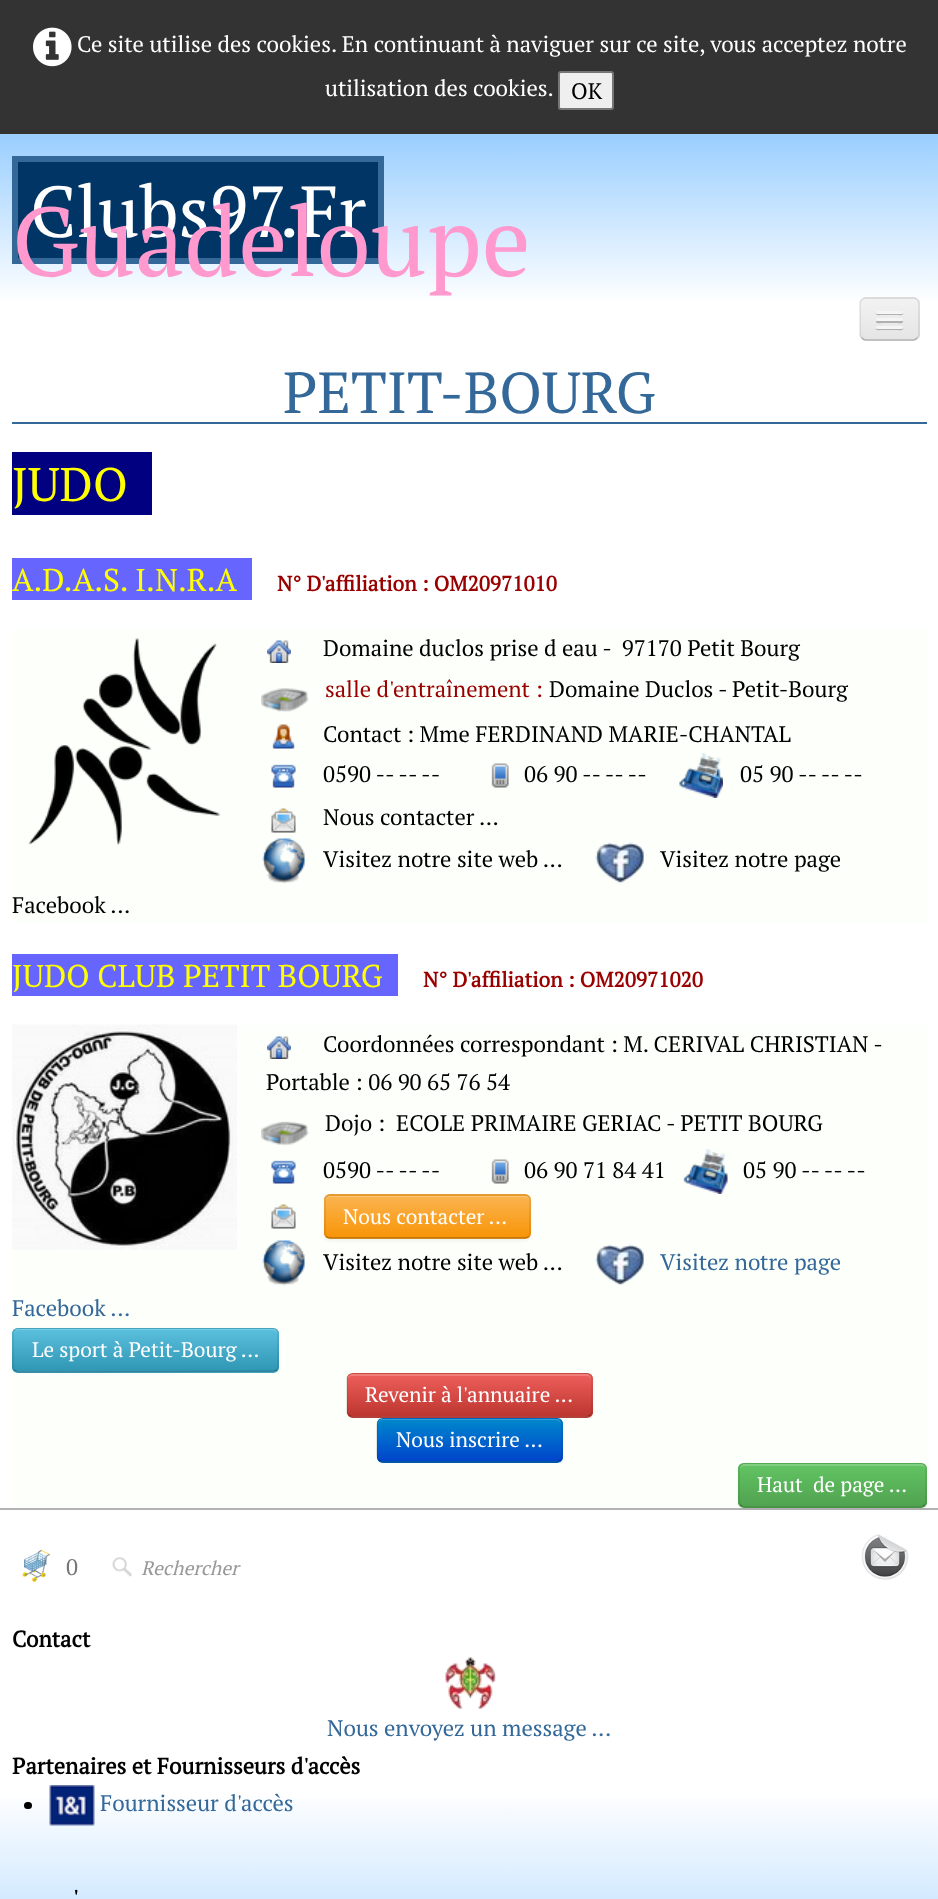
<svg xmlns="http://www.w3.org/2000/svg" width="938" height="1899" viewBox="0 0 938 1899">
  <defs>
    <linearGradient id="g1" gradientUnits="userSpaceOnUse" x1="470" y1="133" x2="470" y2="347"><stop offset="0" stop-color="#99ceff"/><stop offset="0.8" stop-color="#ffffff"/></linearGradient>
    <clipPath id="clip1"><rect x="860" y="297" width="60" height="44" rx="6"/></clipPath>
    <linearGradient id="g2" gradientUnits="userSpaceOnUse" x1="890" y1="299" x2="890" y2="339"><stop offset="0" stop-color="#f2f2f2"/><stop offset="1" stop-color="#e5e5e5"/></linearGradient>
    <filter id="blur1" x="-50%" y="-200%" width="200%" height="500%"><feGaussianBlur stdDeviation="1.5"/></filter>
    <clipPath id="clip2"><rect x="324" y="1194" width="207" height="45" rx="6"/></clipPath>
    <linearGradient id="g3" gradientUnits="userSpaceOnUse" x1="428" y1="1196" x2="428" y2="1238"><stop offset="0" stop-color="#fbb450"/><stop offset="1" stop-color="#f89406"/></linearGradient>
    <clipPath id="clip3"><rect x="12" y="1328" width="267" height="45" rx="6"/></clipPath>
    <linearGradient id="g4" gradientUnits="userSpaceOnUse" x1="146" y1="1329" x2="146" y2="1371"><stop offset="0" stop-color="#5bc0de"/><stop offset="1" stop-color="#2f96b4"/></linearGradient>
    <clipPath id="clip4"><rect x="12" y="1328" width="915" height="45"/></clipPath>
    <clipPath id="clip5"><rect x="347" y="1373" width="246" height="45" rx="6"/></clipPath>
    <linearGradient id="g5" gradientUnits="userSpaceOnUse" x1="470" y1="1374" x2="470" y2="1416"><stop offset="0" stop-color="#ee5f5b"/><stop offset="1" stop-color="#bd362f"/></linearGradient>
    <clipPath id="clip6"><rect x="12" y="1373" width="915" height="45"/></clipPath>
    <clipPath id="clip7"><rect x="377" y="1418" width="186" height="45" rx="6"/></clipPath>
    <linearGradient id="g6" gradientUnits="userSpaceOnUse" x1="470" y1="1419" x2="470" y2="1461"><stop offset="0" stop-color="#0088cc"/><stop offset="1" stop-color="#0044cc"/></linearGradient>
    <clipPath id="clip8"><rect x="12" y="1418" width="915" height="45"/></clipPath>
    <clipPath id="clip9"><rect x="738" y="1463" width="189" height="45" rx="6"/></clipPath>
    <linearGradient id="g7" gradientUnits="userSpaceOnUse" x1="833" y1="1464" x2="833" y2="1506"><stop offset="0" stop-color="#62c462"/><stop offset="1" stop-color="#51a351"/></linearGradient>
    <clipPath id="clip10"><rect x="12" y="1463" width="915" height="45"/></clipPath>
    <linearGradient id="g8" gradientUnits="userSpaceOnUse" x1="470" y1="1620" x2="470" y2="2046"><stop offset="0.4" stop-color="#ffffff"/><stop offset="1" stop-color="#99ceff"/></linearGradient>
  </defs>
  <rect width="100%" height="100%" fill="#ffffff"/>
  <rect x="0" y="0" width="938" height="134" fill="#333333"/>
  <image x="33" y="27" width="39" height="40" href="img1.png"/>
  <text x="77" y="52" font-family="PT Serif" font-size="22.5" fill="#ffffff">Ce site utilise des cookies. En continuant à naviguer sur ce site, vous acceptez notre</text>
  <text x="325" y="96" font-family="PT Serif" font-size="22.5" fill="#ffffff">utilisation des cookies.</text>
  <rect x="559" y="72" width="54" height="37" rx="2" fill="#efefef" stroke="#767676" stroke-width="2"/>
  <text x="571" y="99" font-family="PT Serif" font-size="22.5" fill="#000000">OK</text>
  <rect x="0" y="134" width="938" height="166" fill="url(#g1)"/>
  <rect x="15" y="159" width="366" height="102" fill="#003566" stroke="#336899" stroke-width="6"/>
  <text x="30" y="237" font-family="PT Serif" font-size="72" fill="#ffffff">Clubs97.Fr</text>
  <text x="12" y="276" font-family="PT Serif" font-size="97.5" fill="#ff99ce">Guadeloupe</text>
  <rect x="860" y="297" width="60" height="44" rx="6" fill="#ededed"/>
  <g clip-path="url(#clip1)">
    <rect x="860" y="299" width="60" height="40" fill="url(#g2)"/>
  </g>
  <path d="M917 338C916 339 915 340 913.5 340H865.5C864 340 863 339 862 338" fill="none" stroke="#000000" stroke-opacity="0.25" stroke-width="1.5"/>
  <path d="M862 338C861 337 860 336 860 334.5V303C860 301.5 861 300.5 862 299.5C863 298.5 864 298 865.5 298H913.5C915 298 916 298.5 917 299.5C918 300.5 919 301.5 919 303V334.5C919 336 918 337 917 338" fill="none" stroke="#000000" stroke-opacity="0.1" stroke-width="1.5"/>
  <path d="M876 313C874.5 316 881.5 315 881.5 315H897.5C897.5 315 904.5 316 903 313C902.5 313 902 313.5 901.5 313.5H877.5C877 313.5 876.5 313 876 313Z" fill="#b2b2b2"/>
  <rect x="876" y="311" width="27" height="3" rx="1.5" fill="#f5f5f5"/>
  <path d="M876.5 320.5L876 322C876.5 324 881 323 881.5 323H897.5C898 323 902.5 324 903 322L902.5 320.5L901.5 321H877.5Z" fill="#b0b0b0"/>
  <rect x="876" y="318" width="27" height="3" rx="1.5" fill="#f5f5f5"/>
  <path d="M876 328C874.5 331 881.5 330 881.5 330H897.5C897.5 330 904.5 331 903 328C902.5 328 902 328.5 901.5 328.5H877.5C877 328.5 876.5 328 876 328Z" fill="#aeaeae"/>
  <rect x="876" y="326" width="27" height="3" rx="1.5" fill="#f5f5f5"/>
  <rect x="0" y="1508" width="938" height="2" fill="#b3b3b3"/>
  <rect x="12" y="422" width="915" height="2" fill="#336899"/>
  <text x="283" y="413" font-family="PT Serif" font-size="57.75" fill="#336899">PETIT-BOURG</text>
  <rect x="12" y="452" width="140" height="63" fill="#000080"/>
  <text x="12" y="501" font-family="PT Serif" font-size="47" fill="#ffff00">JUDO</text>
  <rect x="12" y="558" width="240" height="42" fill="#6666ff"/>
  <text x="12" y="591" font-family="PT Serif" font-size="31.5" fill="#ffff00">A.D.A.S. I.N.R.A</text>
  <text x="277" y="591" font-family="PT Serif" font-size="21" font-weight="bold" fill="#990000">N° D'affiliation : OM20971010</text>
  <rect x="12" y="629" width="915" height="295" fill="#fdfffa"/>
  <image x="28" y="638" width="193" height="208" href="img2.png"/>
  <image x="267" y="640" width="24" height="23" href="img3.png"/>
  <text x="323" y="656" font-family="PT Serif" font-size="22.5" fill="#000000" xml:space="preserve">Domaine duclos prise d eau -  97170 Petit Bourg</text>
  <image x="261" y="688" width="48" height="24" href="img4.png"/>
  <text x="325" y="697" font-family="PT Serif" font-size="22.5" fill="#990000">salle d'entraînement :</text>
  <text x="549" y="697" font-family="PT Serif" font-size="22.5" fill="#000000">Domaine Duclos - Petit-Bourg</text>
  <image x="272" y="724" width="23" height="25" href="img5.png"/>
  <text x="323" y="742" font-family="PT Serif" font-size="22.5" fill="#000000">Contact : Mme FERDINAND MARIE-CHANTAL</text>
  <image x="271" y="764" width="25" height="24" href="img6.png"/>
  <text x="323" y="782" font-family="PT Serif" font-size="22.5" fill="#000000">0590 -- -- --</text>
  <image x="491" y="763" width="18" height="25" href="img7.png"/>
  <text x="524" y="782" font-family="PT Serif" font-size="22.5" fill="#000000">06 90 -- -- --</text>
  <image x="679" y="753" width="44" height="45" href="img8.png"/>
  <text x="740" y="782" font-family="PT Serif" font-size="22.5" fill="#000000">05 90 -- -- --</text>
  <image x="271" y="808" width="25" height="25" href="img9.png"/>
  <text x="323" y="825" font-family="PT Serif" font-size="22.5" fill="#000000">Nous contacter ...</text>
  <image x="262" y="838" width="43" height="46" href="img10.png"/>
  <text x="323" y="867" font-family="PT Serif" font-size="22.5" fill="#000000">Visitez notre site web ...</text>
  <image x="595" y="842" width="49" height="41" href="img11.png"/>
  <text x="660" y="867" font-family="PT Serif" font-size="22.5" fill="#000000">Visitez notre page</text>
  <text x="12" y="913" font-family="PT Serif" font-size="22.5" fill="#000000">Facebook ...</text>
  <rect x="12" y="954" width="386" height="42" fill="#6666ff"/>
  <text x="12" y="987" font-family="PT Serif" font-size="31.5" fill="#ffff00">JUDO CLUB PETIT BOURG</text>
  <text x="423" y="987" font-family="PT Serif" font-size="21" font-weight="bold" fill="#990000">N° D'affiliation : OM20971020</text>
  <rect x="12" y="1025" width="915" height="348" fill="#fdfffa"/>
  <image x="12" y="1024" width="225" height="226" href="img12.png"/>
  <image x="267" y="1036" width="24" height="23" href="img3.png"/>
  <text x="323" y="1052" font-family="PT Serif" font-size="22.5" fill="#000000">Coordonnées correspondant : M. CERIVAL CHRISTIAN -</text>
  <text x="266" y="1090" font-family="PT Serif" font-size="22.5" fill="#000000">Portable : 06 90 65 76 54</text>
  <image x="261" y="1121" width="48" height="25" href="img13.png"/>
  <text x="325" y="1131" font-family="PT Serif" font-size="22.5" fill="#000000" xml:space="preserve">Dojo :  ECOLE PRIMAIRE GERIAC - PETIT BOURG</text>
  <image x="271" y="1160" width="25" height="24" href="img6.png"/>
  <text x="323" y="1178" font-family="PT Serif" font-size="22.5" fill="#000000">0590 -- -- --</text>
  <image x="491" y="1159" width="18" height="25" href="img7.png"/>
  <text x="524" y="1178" font-family="PT Serif" font-size="22.5" fill="#000000">06 90 71 84 41</text>
  <image x="683" y="1149" width="45" height="45" href="img14.png"/>
  <text x="743" y="1178" font-family="PT Serif" font-size="22.5" fill="#000000">05 90 -- -- --</text>
  <image x="271" y="1204" width="25" height="25" href="img9.png"/>
  <rect x="324" y="1196" width="207" height="45" rx="6" fill="#000000" fill-opacity="0.05" filter="url(#blur1)"/>
  <rect x="324" y="1194" width="207" height="45" rx="6" fill="#faa732"/>
  <g clip-path="url(#clip2)">
    <rect x="324" y="1196" width="207" height="42" fill="url(#g3)"/>
  </g>
  <path d="M330 1197H525C527 1197 530 1199 530 1202V1201C530 1198 528 1196 525 1196H331C328 1196 326 1198 326 1201V1202C326 1199 328 1197 330 1197Z" fill="#ffffff" fill-opacity="0.2"/>
  <path d="M528.5 1236.5C527.5 1237.5 526.5 1238 525 1238H330C328.5 1238 327.5 1237.5 326.5 1236.5" fill="none" stroke="#000000" stroke-opacity="0.25" stroke-width="1.5"/>
  <path d="M326.5 1236.5C325.5 1235.5 325 1234.5 325 1233V1200C325 1198.5 325.5 1197.5 326.5 1196.5C327.5 1195.5 328.5 1195 330 1195H525C526.5 1195 527.5 1195.5 528.5 1196.5C529.5 1197.5 530 1198.5 530 1200V1233C530 1234.5 529.5 1235.5 528.5 1236.5" fill="none" stroke="#000000" stroke-opacity="0.1" stroke-width="1.5"/>
  <text x="343" y="1224" font-family="PT Serif" font-size="21" fill="#ffffff">Nous contacter ...</text>
  <image x="262" y="1240" width="43" height="46" href="img10.png"/>
  <text x="323" y="1270" font-family="PT Serif" font-size="22.5" fill="#000000">Visitez notre site web ...</text>
  <image x="595" y="1244" width="49" height="41" href="img11.png"/>
  <text x="660" y="1270" font-family="PT Serif" font-size="22.5" fill="#336899">Visitez notre page</text>
  <text x="12" y="1316" font-family="PT Serif" font-size="22.5" fill="#336899">Facebook ...</text>
  <rect x="12" y="1329" width="267" height="45" rx="6" fill="#000000" fill-opacity="0.05" filter="url(#blur1)"/>
  <rect x="12" y="1328" width="267" height="45" rx="6" fill="#49afcd"/>
  <g clip-path="url(#clip3)">
    <rect x="12" y="1329" width="267" height="42" fill="url(#g4)"/>
  </g>
  <path d="M18 1330H273C275 1330 278 1333 278 1335C278 1332 276 1329 273 1329H19C16 1329 14 1332 14 1335C14 1333 16 1330 18 1330Z" fill="#7bcde5"/>
  <path d="M276.5 1370L273.5 1371.5L18 1372C16.5 1371.5 15.5 1371 14.5 1370" fill="none" stroke="#000000" stroke-opacity="0.25" stroke-width="1.5"/>
  <g clip-path="url(#clip4)">
    <path d="M14.5 1370C13.5 1369 13 1368 13 1366.5V1333.5C13 1332 13.5 1331 14.5 1330C15.5 1329 16.5 1328 18 1328H273C274.5 1328 275.5 1329 276.5 1330C277.5 1331 278 1332 278 1333.5V1366.5C278 1368 277.5 1369 276.5 1370" fill="none" stroke="#000000" stroke-opacity="0.1" stroke-width="1.5"/>
  </g>
  <text x="32" y="1357" font-family="PT Serif" font-size="21" fill="#ffffff">Le sport à Petit-Bourg ...</text>
  <rect x="12" y="1373" width="915" height="45" fill="#fdfffa"/>
  <rect x="347" y="1374" width="246" height="45" rx="6" fill="#000000" fill-opacity="0.05" filter="url(#blur1)"/>
  <rect x="347" y="1373" width="246" height="45" rx="6" fill="#da4f49"/>
  <g clip-path="url(#clip5)">
    <rect x="347" y="1374" width="246" height="42" fill="url(#g5)"/>
  </g>
  <path d="M352 1376H586C589 1376 591 1378 591 1380V1379C591 1376 589 1374 586 1374H353C350 1374 348 1376 348 1379V1380C348 1378 350 1376 352 1376Z" fill="#ffffff" fill-opacity="0.2"/>
  <path d="M590 1415C589 1416 588 1417 586.5 1417H352.5C351 1417 350 1416 349 1415" fill="none" stroke="#000000" stroke-opacity="0.25" stroke-width="1.5"/>
  <g clip-path="url(#clip6)">
    <path d="M349 1415C348 1414 347 1413 347 1411.5V1378.5C347 1377 348 1376 349 1375C350 1374 351 1373 352.5 1373H586.5C588 1373 589 1374 590 1375C591 1376 592 1377 592 1378.5V1411.5C592 1413 591 1414 590 1415" fill="none" stroke="#000000" stroke-opacity="0.1" stroke-width="1.5"/>
  </g>
  <text x="365" y="1402" font-family="PT Serif" font-size="21" fill="#ffffff">Revenir à l'annuaire ...</text>
  <rect x="12" y="1418" width="915" height="45" fill="#fdfffa"/>
  <rect x="377" y="1419" width="186" height="45" rx="6" fill="#000000" fill-opacity="0.05" filter="url(#blur1)"/>
  <rect x="377" y="1418" width="186" height="45" rx="6" fill="#006dcc"/>
  <g clip-path="url(#clip7)">
    <rect x="377" y="1419" width="186" height="42" fill="url(#g6)"/>
  </g>
  <path d="M382 1420H556C559 1420 561 1423 561 1425C561 1422 560 1420 557 1419H382C379 1420 378 1422 378 1425C378 1423 380 1420 382 1420Z" fill="#ffffff" fill-opacity="0.2"/>
  <path d="M560 1460C559 1461 558 1462 556.5 1462H382.5C381 1462 380 1461 379 1460" fill="none" stroke="#000000" stroke-opacity="0.25" stroke-width="1.5"/>
  <g clip-path="url(#clip8)">
    <path d="M379 1460C375.5 1457 377 1449 377 1445.5C377 1411 372.5 1418 411.5 1418H527.5C566.5 1418 562 1411 562 1445.5C562 1449 563.5 1457 560 1460" fill="none" stroke="#000000" stroke-opacity="0.1" stroke-width="1.5"/>
  </g>
  <text x="396" y="1447" font-family="PT Serif" font-size="21" fill="#ffffff">Nous inscrire ...</text>
  <rect x="12" y="1463" width="915" height="45" fill="#fdfffa"/>
  <rect x="738" y="1464" width="189" height="45" rx="6" fill="#000000" fill-opacity="0.05" filter="url(#blur1)"/>
  <rect x="738" y="1463" width="189" height="45" rx="6" fill="#5bb75b"/>
  <g clip-path="url(#clip9)">
    <rect x="738" y="1464" width="189" height="42" fill="url(#g7)"/>
  </g>
  <path d="M744 1466H921C923 1466 926 1468 926 1470C926 1467 925 1465 922 1464H744C741 1465 740 1467 740 1470C740 1468 742 1466 744 1466Z" fill="#ffffff" fill-opacity="0.2"/>
  <path d="M924.5 1505C923.5 1506 922.5 1507 921 1507H744C742.5 1507 741.5 1506 740.5 1505" fill="none" stroke="#000000" stroke-opacity="0.25" stroke-width="1.5"/>
  <g clip-path="url(#clip10)">
    <path d="M740.5 1505C739.5 1504 739 1503 739 1501.5V1468.5C739 1467 739.5 1466 740.5 1465C741.5 1464 742.5 1463 744 1463H921C922.5 1463 923.5 1464 924.5 1465C925.5 1466 926 1467 926 1468.5V1501.5C926 1503 925.5 1504 924.5 1505" fill="none" stroke="#000000" stroke-opacity="0.1" stroke-width="1.5"/>
  </g>
  <text x="757" y="1492" font-family="PT Serif" font-size="21" fill="#ffffff" xml:space="preserve">Haut  de page ...</text>
  <image x="22" y="1549" width="29" height="33" href="img15.png"/>
  <text x="66" y="1575" font-family="PT Serif" font-size="22.5" fill="#777777">0</text>
  <image x="112" y="1557" width="20" height="20" href="img16.png"/>
  <text x="141" y="1575" font-family="PT Serif" font-size="19.5" font-style="italic" fill="#999999">Rechercher</text>
  <image x="861" y="1534" width="48" height="46" href="img17.png"/>
  <rect x="0" y="1797" width="938" height="102" fill="url(#g8)"/>
  <text x="12" y="1647" font-family="PT Serif" font-size="22.5" font-weight="bold" fill="#000000">Contact</text>
  <image x="445" y="1657" width="51" height="52" href="img18.png"/>
  <text x="327" y="1736" font-family="PT Serif" font-size="22.5" fill="#336899">Nous envoyez un message ...</text>
  <text x="12" y="1774" font-family="PT Serif" font-size="22.5" font-weight="bold" fill="#000000">Partenaires et Fournisseurs d'accès</text>
  <rect x="24" y="1802" width="8" height="7" rx="3.5" fill="#000000"/>
  <image x="49" y="1785" width="46" height="41" href="img19.png"/>
  <text x="100" y="1811" font-family="PT Serif" font-size="22.5" fill="#336899">Fournisseur d'accès</text>
  <text x="73" y="1906" font-family="PT Serif" font-size="22.5" font-weight="bold" fill="#000000">'</text>
</svg>
